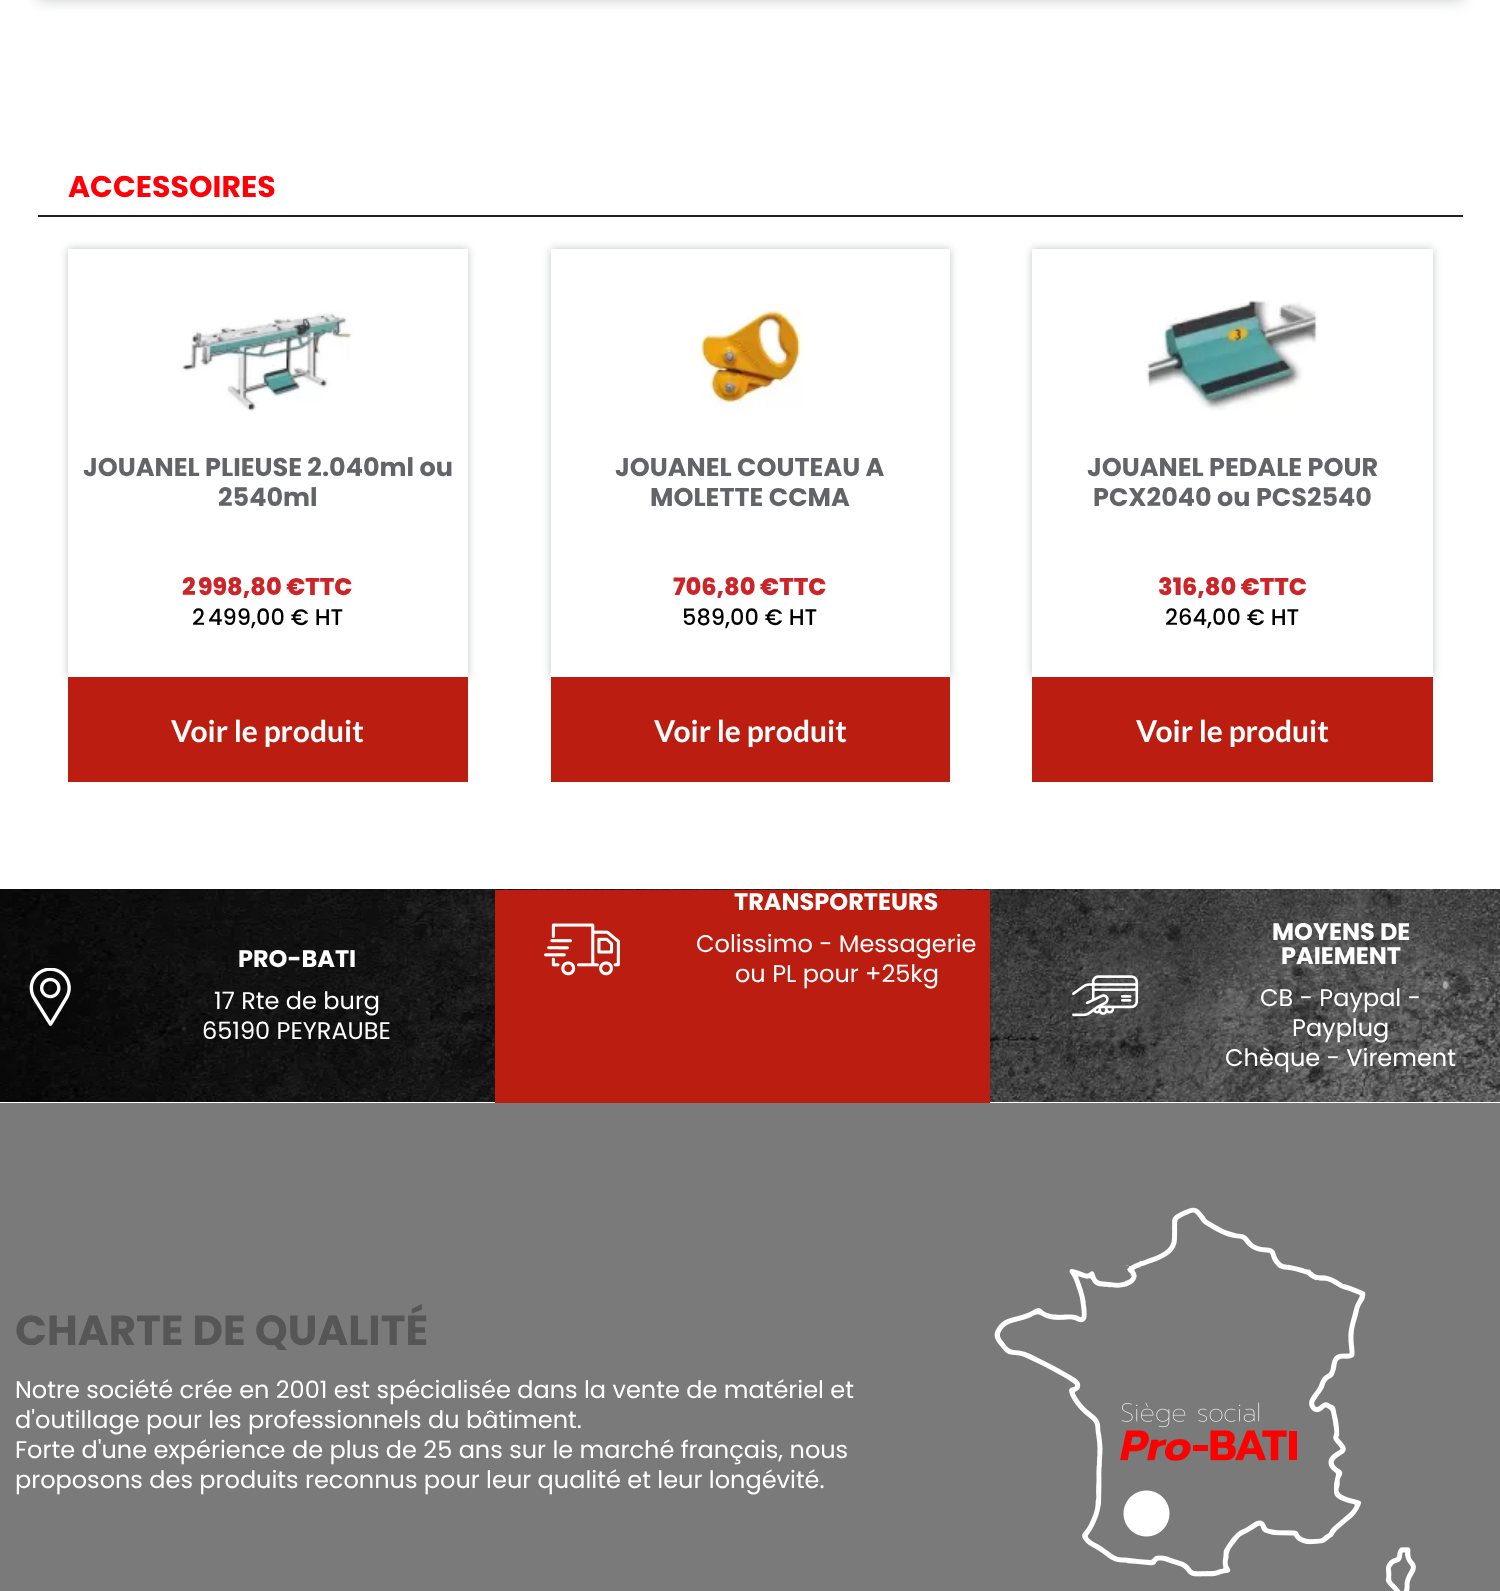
<svg xmlns="http://www.w3.org/2000/svg" width="1500" height="1591" viewBox="0 0 1500 1591">
  <defs>
    <filter id="blur1" x="-50%" y="-200%" width="200%" height="500%"><feGaussianBlur stdDeviation="7.5"/></filter>
    <clipPath id="clip1"><path d="M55 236H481V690H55ZM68 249H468V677H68Z" clip-rule="evenodd"/></clipPath>
    <filter id="blur2" x="-50%" y="-200%" width="200%" height="500%"><feGaussianBlur stdDeviation="4"/></filter>
    <clipPath id="clip2"><path d="M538 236H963V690H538ZM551 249H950V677H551Z" clip-rule="evenodd"/></clipPath>
    <clipPath id="clip3"><path d="M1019 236H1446V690H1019ZM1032 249H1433V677H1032Z" clip-rule="evenodd"/></clipPath>
  </defs>
  <rect width="100%" height="100%" fill="#ffffff"/>
  <rect x="38" y="-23" width="1425" height="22" fill="#c1c5c6" filter="url(#blur1)"/>
  <text x="68" y="197" font-family="Poppins" font-size="30" font-weight="bold" fill="#ff0008">ACCESSOIRES</text>
  <rect x="38" y="215" width="1425" height="2" fill="#222021"/>
  <g clip-path="url(#clip1)">
    <rect x="68" y="249" width="400" height="428" fill="#c1c5c6" filter="url(#blur2)"/>
  </g>
  <image x="181" y="311" width="173" height="101" href="img1.png"/>
  <text x="83" y="476" font-family="Poppins" font-size="25.5" font-weight="bold" fill="#626467">JOUANEL PLIEUSE 2.040ml ou</text>
  <text x="218" y="506" font-family="Poppins" font-size="25.5" font-weight="bold" fill="#626467">2540ml</text>
  <text x="182" y="595" font-family="Poppins" font-size="24" font-weight="800" fill="#cb252a">2 998,80 €TTC</text>
  <text x="192" y="625" font-family="Poppins" font-size="22.5" font-weight="500" fill="#000000">2 499,00 € HT</text>
  <rect x="68" y="677" width="400" height="105" fill="#bb1e10"/>
  <text x="171" y="742" font-family="Lato" font-size="30" font-weight="bold" fill="#ffffff">Voir le produit</text>
  <g clip-path="url(#clip2)">
    <rect x="551" y="249" width="399" height="428" fill="#c1c5c6" filter="url(#blur2)"/>
  </g>
  <image x="691" y="310" width="114" height="99" href="img2.png"/>
  <text x="615" y="476" font-family="Poppins" font-size="25.5" font-weight="bold" fill="#626467">JOUANEL COUTEAU A</text>
  <text x="650" y="506" font-family="Poppins" font-size="25.5" font-weight="bold" fill="#626467">MOLETTE CCMA</text>
  <text x="673" y="595" font-family="Poppins" font-size="24" font-weight="800" fill="#cb252a">706,80 €TTC</text>
  <text x="682" y="625" font-family="Poppins" font-size="22.5" font-weight="500" fill="#000000">589,00 € HT</text>
  <rect x="551" y="677" width="399" height="105" fill="#bb1e10"/>
  <text x="654" y="742" font-family="Lato" font-size="30" font-weight="bold" fill="#ffffff">Voir le produit</text>
  <g clip-path="url(#clip3)">
    <rect x="1032" y="249" width="401" height="428" fill="#c1c5c6" filter="url(#blur2)"/>
  </g>
  <image x="1145" y="300" width="173" height="111" href="img3.png"/>
  <text x="1087" y="476" font-family="Poppins" font-size="25.5" font-weight="bold" fill="#626467">JOUANEL PEDALE POUR</text>
  <text x="1093" y="506" font-family="Poppins" font-size="25.5" font-weight="bold" fill="#626467">PCX2040 ou PCS2540</text>
  <text x="1158" y="595" font-family="Poppins" font-size="24" font-weight="800" fill="#cb252a">316,80 €TTC</text>
  <text x="1165" y="625" font-family="Poppins" font-size="22.5" font-weight="500" fill="#000000">264,00 € HT</text>
  <rect x="1032" y="677" width="401" height="105" fill="#bb1e10"/>
  <text x="1136" y="742" font-family="Lato" font-size="30" font-weight="bold" fill="#ffffff">Voir le produit</text>
  <image x="0" y="889" width="1500" height="213" href="img4.png"/>
  <image x="29" y="968" width="42" height="58" href="img5.png"/>
  <text x="238" y="967" font-family="Poppins" font-size="24" font-weight="bold" fill="#ffffff">PRO-BATI</text>
  <text x="214" y="1009" font-family="Poppins" font-size="24" fill="#ffffff">17 Rte de burg</text>
  <text x="202" y="1039" font-family="Poppins" font-size="24" fill="#ffffff">65190 PEYRAUBE</text>
  <rect x="495" y="890" width="495" height="213" fill="#bb1e10"/>
  <image x="544" y="923" width="76" height="53" href="img6.png"/>
  <text x="734" y="910" font-family="Poppins" font-size="24" font-weight="bold" fill="#ffffff">TRANSPORTEURS</text>
  <text x="696" y="952" font-family="Poppins" font-size="24" fill="#ffffff">Colissimo - Messagerie</text>
  <text x="735" y="982" font-family="Poppins" font-size="24" fill="#ffffff">ou PL pour +25kg</text>
  <image x="1072" y="975" width="67" height="42" href="img7.png"/>
  <text x="1272" y="940" font-family="Poppins" font-size="24" font-weight="bold" fill="#ffffff">MOYENS DE</text>
  <text x="1281" y="964" font-family="Poppins" font-size="24" font-weight="bold" fill="#ffffff">PAIEMENT</text>
  <text x="1260" y="1006" font-family="Poppins" font-size="24" fill="#ffffff">CB - Paypal -</text>
  <text x="1292" y="1036" font-family="Poppins" font-size="24" fill="#ffffff">Payplug</text>
  <text x="1225" y="1066" font-family="Poppins" font-size="24" fill="#ffffff">Chèque - Virement</text>
  <rect x="0" y="1103" width="1500" height="488" fill="#7a7a7a"/>
  <text x="15" y="1345" font-family="Poppins" font-size="42" font-weight="bold" fill="#565656">CHARTE DE QUALITÉ</text>
  <text x="15" y="1398" font-family="Poppins" font-size="24" fill="#ffffff">Notre société crée en 2001 est spécialisée dans la vente de matériel et</text>
  <text x="15" y="1428" font-family="Poppins" font-size="24" fill="#ffffff">d'outillage pour les professionnels du bâtiment.</text>
  <text x="15" y="1458" font-family="Poppins" font-size="24" fill="#ffffff">Forte d'une expérience de plus de 25 ans sur le marché français, nous</text>
  <text x="15" y="1488" font-family="Poppins" font-size="24" fill="#ffffff">proposons des produits reconnus pour leur qualité et leur longévité.</text>
  <image x="994" y="1207" width="422" height="384" href="img8.png"/>
</svg>
